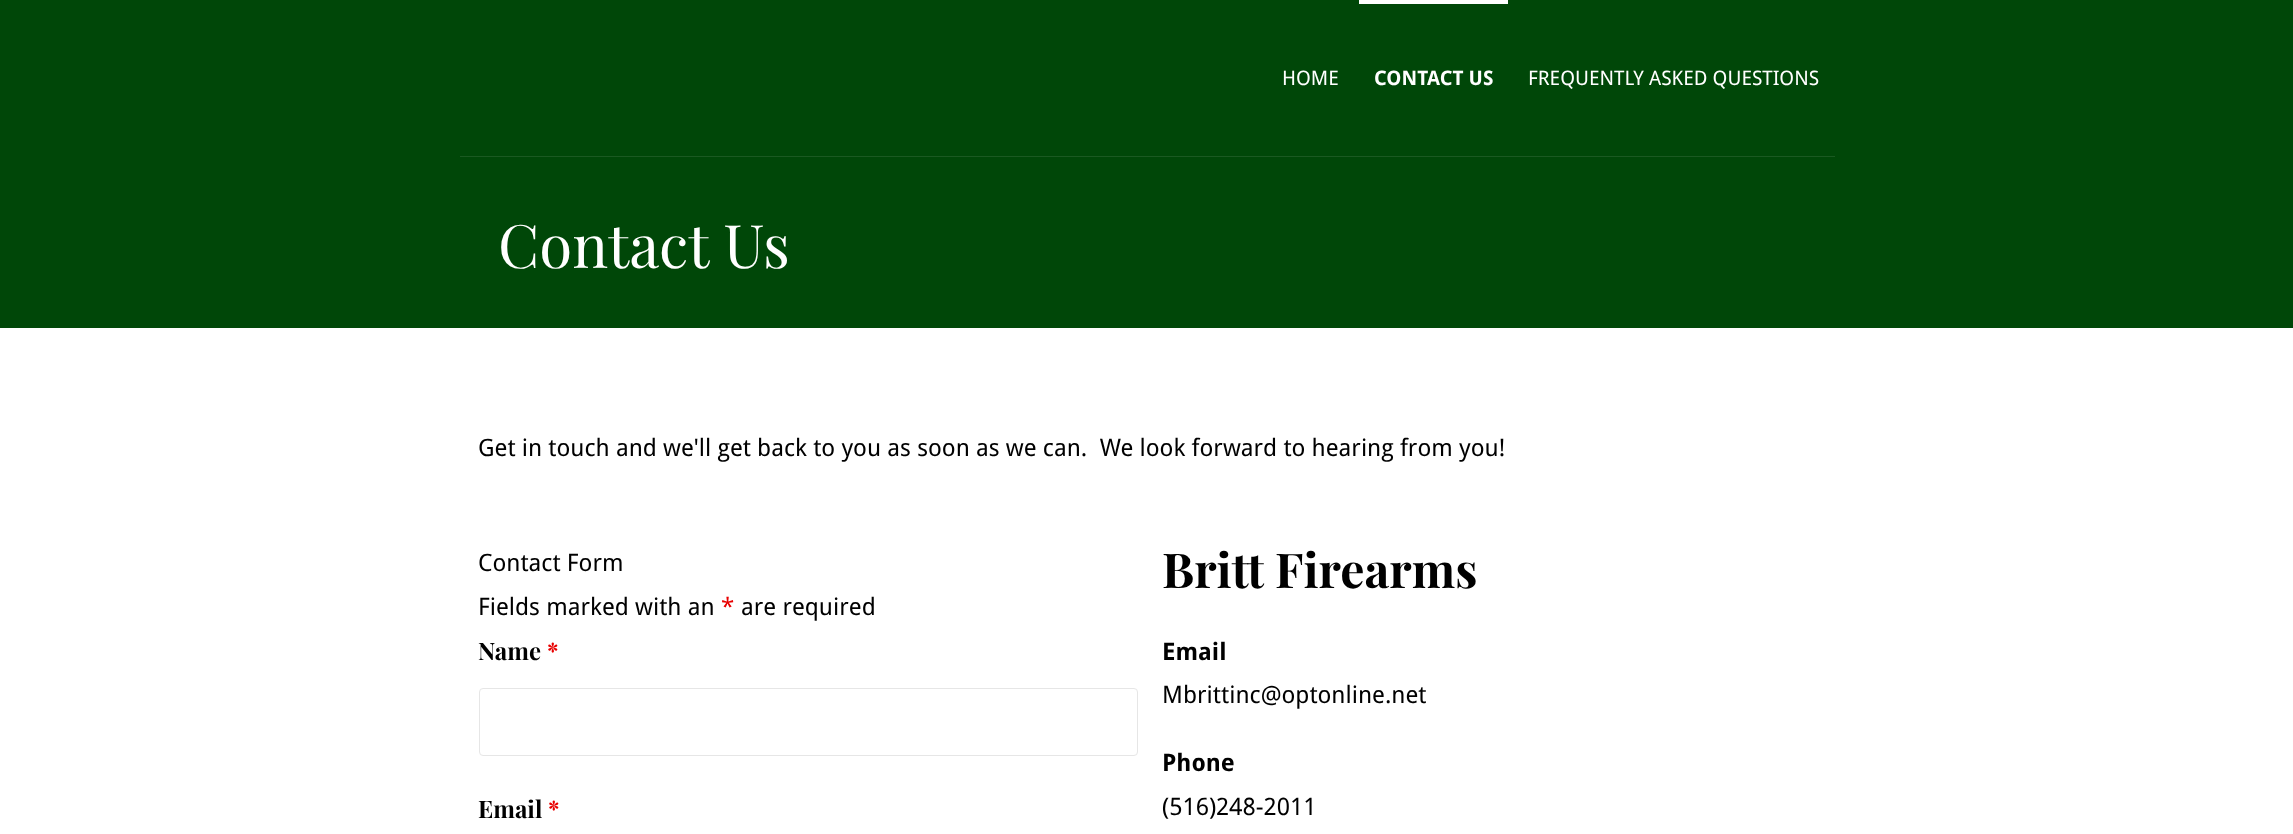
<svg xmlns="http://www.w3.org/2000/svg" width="2293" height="834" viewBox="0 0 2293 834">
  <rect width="100%" height="100%" fill="#ffffff"/>
  <rect x="0" y="0" width="2293" height="328" fill="#004708"/>
  <rect x="460" y="156" width="1375" height="1" fill="#1a5921"/>
  <text x="1282" y="85" font-family="Droid Sans" font-size="20" fill="#ffffff">HOME</text>
  <rect x="1359" y="0" width="149" height="4" fill="#ffffff"/>
  <text x="1374" y="85" font-family="Droid Sans" font-size="20" font-weight="bold" fill="#ffffff">CONTACT US</text>
  <text x="1528" y="85" font-family="Droid Sans" font-size="20" fill="#ffffff">FREQUENTLY ASKED QUESTIONS</text>
  <text x="498" y="268" font-family="Playfair Display" font-size="60" fill="#ffffff">Contact Us</text>
  <text x="478" y="456" font-family="Droid Sans" font-size="24" fill="#000000" xml:space="preserve">Get in touch and we'll get back to you as soon as we can.  We look forward to hearing from you!</text>
  <text x="478" y="571" font-family="Droid Sans" font-size="24" fill="#000000">Contact Form</text>
  <text x="478" y="615" font-family="Droid Sans" font-size="24" fill="#000000">Fields marked with an</text>
  <text x="721" y="615" font-family="Droid Sans" font-size="24" fill="#e80000">*</text>
  <text x="741" y="615" font-family="Droid Sans" font-size="24" fill="#000000">are required</text>
  <text x="478" y="660" font-family="Playfair Display" font-size="24" font-weight="bold" fill="#000000">Name</text>
  <text x="547" y="660" font-family="Playfair Display" font-size="24" font-weight="bold" fill="#e80000">*</text>
  <rect x="479.5" y="688.5" width="658" height="67" rx="3.5" fill="none" stroke="#e6e6e6"/>
  <text x="478" y="818" font-family="Playfair Display" font-size="24" font-weight="bold" fill="#000000">Email</text>
  <text x="548" y="818" font-family="Playfair Display" font-size="24" font-weight="bold" fill="#e80000">*</text>
  <text x="1162" y="588" font-family="Playfair Display" font-size="48" font-weight="bold" fill="#000000">Britt Firearms</text>
  <text x="1162" y="660" font-family="Droid Sans" font-size="24" font-weight="bold" fill="#000000">Email</text>
  <text x="1162" y="703" font-family="Droid Sans" font-size="24" fill="#000000">Mbrittinc@optonline.net</text>
  <text x="1162" y="771" font-family="Droid Sans" font-size="24" font-weight="bold" fill="#000000">Phone</text>
  <text x="1162" y="815" font-family="Droid Sans" font-size="24" fill="#000000">(516)248-2011</text>
</svg>
